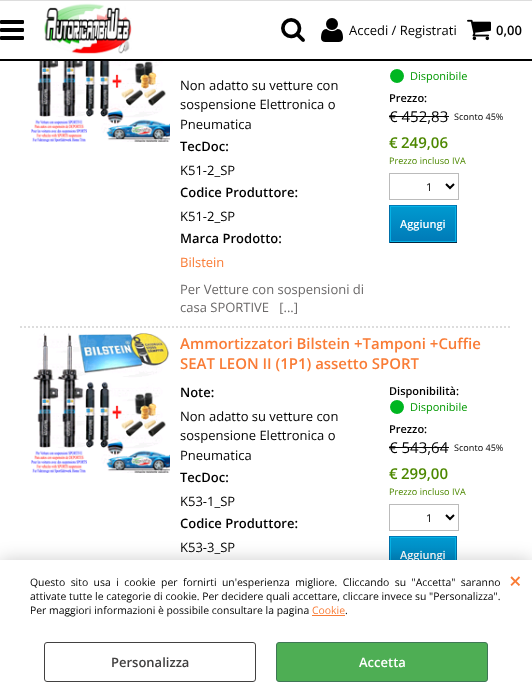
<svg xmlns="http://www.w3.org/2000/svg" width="532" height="692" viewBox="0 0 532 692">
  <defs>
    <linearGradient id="g1" gradientUnits="userSpaceOnUse" x1="423" y1="170" x2="423" y2="206"><stop offset="0" stop-color="#009ad0"/><stop offset="1" stop-color="#007ab7"/></linearGradient>
    <linearGradient id="g2" gradientUnits="userSpaceOnUse" x1="423" y1="206" x2="423" y2="242"><stop offset="0" stop-color="#009ad0"/><stop offset="1" stop-color="#007ab7"/></linearGradient>
    <linearGradient id="g3" gradientUnits="userSpaceOnUse" x1="423" y1="501" x2="423" y2="537"><stop offset="0" stop-color="#009ad0"/><stop offset="1" stop-color="#007ab7"/></linearGradient>
    <linearGradient id="g4" gradientUnits="userSpaceOnUse" x1="423" y1="537" x2="423" y2="573"><stop offset="0" stop-color="#009ad0"/><stop offset="1" stop-color="#007ab7"/></linearGradient>
    <filter id="blur1" x="-50%" y="-200%" width="200%" height="500%"><feGaussianBlur stdDeviation="9"/></filter>
  </defs>
  <rect width="100%" height="100%" fill="#ffffff"/>
  <rect x="0" y="0" width="532" height="1" fill="#dddddd"/>
  <rect x="0" y="59" width="532" height="2" fill="#000000"/>
  <image x="0" y="20" width="24" height="20" href="img1.png"/>
  <image x="44" y="3" width="88" height="51" href="img2.png"/>
  <image x="281" y="18" width="24" height="24" href="img3.png"/>
  <image x="321" y="18" width="22" height="24" href="img4.png"/>
  <text x="349" y="35" font-family="Open Sans" font-size="13" fill="#000000">Accedi / Registrati</text>
  <image x="467" y="19" width="24" height="22" href="img5.png"/>
  <text x="496" y="35" font-family="Open Sans" font-size="13" font-weight="600" fill="#000000">0,00</text>
  <path d="M20 327H512" fill="none" stroke="#dddddd" stroke-width="2" stroke-dasharray="2 2"/>
  <image x="31" y="61" width="139" height="81" href="img6.png"/>
  <text x="180" y="90" font-family="Open Sans" font-size="13" fill="#000000">Non adatto su vetture con</text>
  <text x="180" y="109" font-family="Open Sans" font-size="13" fill="#000000">sospensione Elettronica o</text>
  <text x="180" y="129" font-family="Open Sans" font-size="13" fill="#000000">Pneumatica</text>
  <text x="180" y="151" font-family="Open Sans" font-size="13" font-weight="600" fill="#000000">TecDoc:</text>
  <text x="180" y="175" font-family="Open Sans" font-size="13" fill="#000000">K51-2_SP</text>
  <text x="180" y="197" font-family="Open Sans" font-size="13" font-weight="600" fill="#000000">Codice Produttore:</text>
  <text x="180" y="221" font-family="Open Sans" font-size="13" fill="#000000">K51-2_SP</text>
  <text x="180" y="243" font-family="Open Sans" font-size="13" font-weight="600" fill="#000000">Marca Prodotto:</text>
  <text x="180" y="267" font-family="Open Sans" font-size="13" fill="#f97c36">Bilstein</text>
  <image x="390" y="69" width="14" height="14" href="img7.png"/>
  <text x="410" y="80" font-family="Open Sans" font-size="11" fill="#009900">Disponibile</text>
  <text x="389" y="102" font-family="Open Sans" font-size="11" font-weight="600" fill="#000000">Prezzo:</text>
  <text x="389" y="122" font-family="Open Sans" font-size="15" fill="#000000">€ 452,83</text>
  <rect x="389" y="116" width="60" height="1" fill="#000000"/>
  <text x="454" y="120" font-family="Open Sans" font-size="9.1" fill="#000000">Sconto 45%</text>
  <text x="389" y="148" font-family="Open Sans" font-size="15" font-weight="600" fill="#4d8800">€</text>
  <text x="401" y="148" font-family="Open Sans" font-size="15" font-weight="600" fill="#4d8800">249,06</text>
  <text x="389" y="164" font-family="Open Sans" font-size="9.1" fill="#4d8800">Prezzo incluso IVA</text>
  <rect x="389.5" y="173.5" width="69" height="26" fill="none" stroke="#bbbbbb"/>
  <path d="M446 184L450 188L454 184" fill="none" stroke="#000000" stroke-width="2"/>
  <text x="426" y="191" font-family="Open Sans" font-size="11" fill="#000000">1</text>
  <rect x="389" y="205" width="68" height="1" fill="url(#g1)"/>
  <rect x="391" y="207" width="64" height="34" fill="url(#g2)"/>
  <rect x="390.5" y="206.5" width="65" height="35" fill="none" stroke="#06b2e6"/>
  <rect x="456" y="205" width="1" height="38" fill="#006fa8"/>
  <rect x="389" y="242" width="68" height="1" fill="#012740"/>
  <rect x="389" y="205" width="1" height="38" fill="#006fa8"/>
  <text x="400" y="228" font-family="Open Sans" font-size="11" font-weight="600" fill="#ffffff">Aggiungi</text>
  <text x="180" y="294" font-family="Open Sans" font-size="13" fill="#6b6969">Per Vetture con sospensioni di</text>
  <text x="180" y="312" font-family="Open Sans" font-size="13" fill="#6b6969" xml:space="preserve">casa SPORTIVE   [...]</text>
  <image x="31" y="333" width="139" height="140" href="img8.png"/>
  <text x="180" y="349" font-family="Open Sans" font-size="14.95" font-weight="600" fill="#f97c36">Ammortizzatori Bilstein +Tamponi +Cuffie</text>
  <text x="180" y="369" font-family="Open Sans" font-size="14.95" font-weight="600" fill="#f97c36">SEAT LEON II (1P1) assetto SPORT</text>
  <text x="180" y="397" font-family="Open Sans" font-size="13" font-weight="600" fill="#000000">Note:</text>
  <text x="180" y="421" font-family="Open Sans" font-size="13" fill="#000000">Non adatto su vetture con</text>
  <text x="180" y="440" font-family="Open Sans" font-size="13" fill="#000000">sospensione Elettronica o</text>
  <text x="180" y="460" font-family="Open Sans" font-size="13" fill="#000000">Pneumatica</text>
  <text x="180" y="482" font-family="Open Sans" font-size="13" font-weight="600" fill="#000000">TecDoc:</text>
  <text x="180" y="506" font-family="Open Sans" font-size="13" fill="#000000">K53-1_SP</text>
  <text x="180" y="528" font-family="Open Sans" font-size="13" font-weight="600" fill="#000000">Codice Produttore:</text>
  <text x="180" y="552" font-family="Open Sans" font-size="13" fill="#000000">K53-3_SP</text>
  <text x="389" y="395" font-family="Open Sans" font-size="11" font-weight="600" fill="#000000">Disponibilità:</text>
  <image x="390" y="400" width="14" height="14" href="img7.png"/>
  <text x="410" y="411" font-family="Open Sans" font-size="11" fill="#009900">Disponibile</text>
  <text x="389" y="433" font-family="Open Sans" font-size="11" font-weight="600" fill="#000000">Prezzo:</text>
  <text x="389" y="453" font-family="Open Sans" font-size="15" fill="#000000">€ 543,64</text>
  <rect x="389" y="447" width="60" height="1" fill="#000000"/>
  <text x="454" y="451" font-family="Open Sans" font-size="9.1" fill="#000000">Sconto 45%</text>
  <text x="389" y="479" font-family="Open Sans" font-size="15" font-weight="600" fill="#4d8800">€</text>
  <text x="401" y="479" font-family="Open Sans" font-size="15" font-weight="600" fill="#4d8800">299,00</text>
  <text x="389" y="495" font-family="Open Sans" font-size="9.1" fill="#4d8800">Prezzo incluso IVA</text>
  <rect x="389.5" y="504.5" width="69" height="26" fill="none" stroke="#bbbbbb"/>
  <path d="M446 515L450 519L454 515" fill="none" stroke="#000000" stroke-width="2"/>
  <text x="426" y="522" font-family="Open Sans" font-size="11" fill="#000000">1</text>
  <rect x="389" y="536" width="68" height="1" fill="url(#g3)"/>
  <rect x="391" y="538" width="64" height="22" fill="url(#g4)"/>
  <rect x="390.5" y="537.5" width="65" height="35" fill="none" stroke="#06b2e6"/>
  <rect x="456" y="536" width="1" height="24" fill="#006fa8"/>
  <rect x="389" y="536" width="1" height="24" fill="#006fa8"/>
  <text x="400" y="559" font-family="Open Sans" font-size="11" font-weight="600" fill="#ffffff">Aggiungi</text>
  <rect x="0" y="560" width="532" height="132" fill="#000000" fill-opacity="0.2" filter="url(#blur1)"/>
  <rect x="0" y="560" width="532" height="132" fill="#ffffff"/>
  <text x="30" y="586" word-spacing="2.75" font-family="Open Sans" font-size="10.4" fill="#000000">Questo sito usa i cookie per fornirti un'esperienza migliore. Cliccando su "Accetta" saranno</text>
  <text x="30" y="600" font-family="Open Sans" font-size="10.4" fill="#000000">attivate tutte le categorie di cookie. Per decidere quali accettare, cliccare invece su "Personalizza".</text>
  <text x="30" y="614" font-family="Open Sans" font-size="10.4" fill="#000000">Per maggiori informazioni è possibile consultare la pagina</text>
  <text x="312" y="614" font-family="Open Sans" font-size="10.4" fill="#f97c36">Cookie</text>
  <rect x="312" y="615" width="33" height="1" fill="#f97c36"/>
  <text x="345" y="614" font-family="Open Sans" font-size="10.4" fill="#000000">.</text>
  <text x="509" y="589" font-family="Open Sans" font-size="22" font-weight="600" fill="#f97c36">×</text>
  <rect x="44.5" y="642.5" width="211" height="39" rx="2.5" fill="none" stroke="#424141"/>
  <text x="111" y="667" font-family="Open Sans" font-size="13" font-weight="600" fill="#424141">Personalizza</text>
  <rect x="276.5" y="642.5" width="211" height="39" rx="2.5" fill="#4eae54" stroke="#3f7755"/>
  <text x="359" y="667" font-family="Open Sans" font-size="13" font-weight="600" fill="#ffffff">Accetta</text>
</svg>
